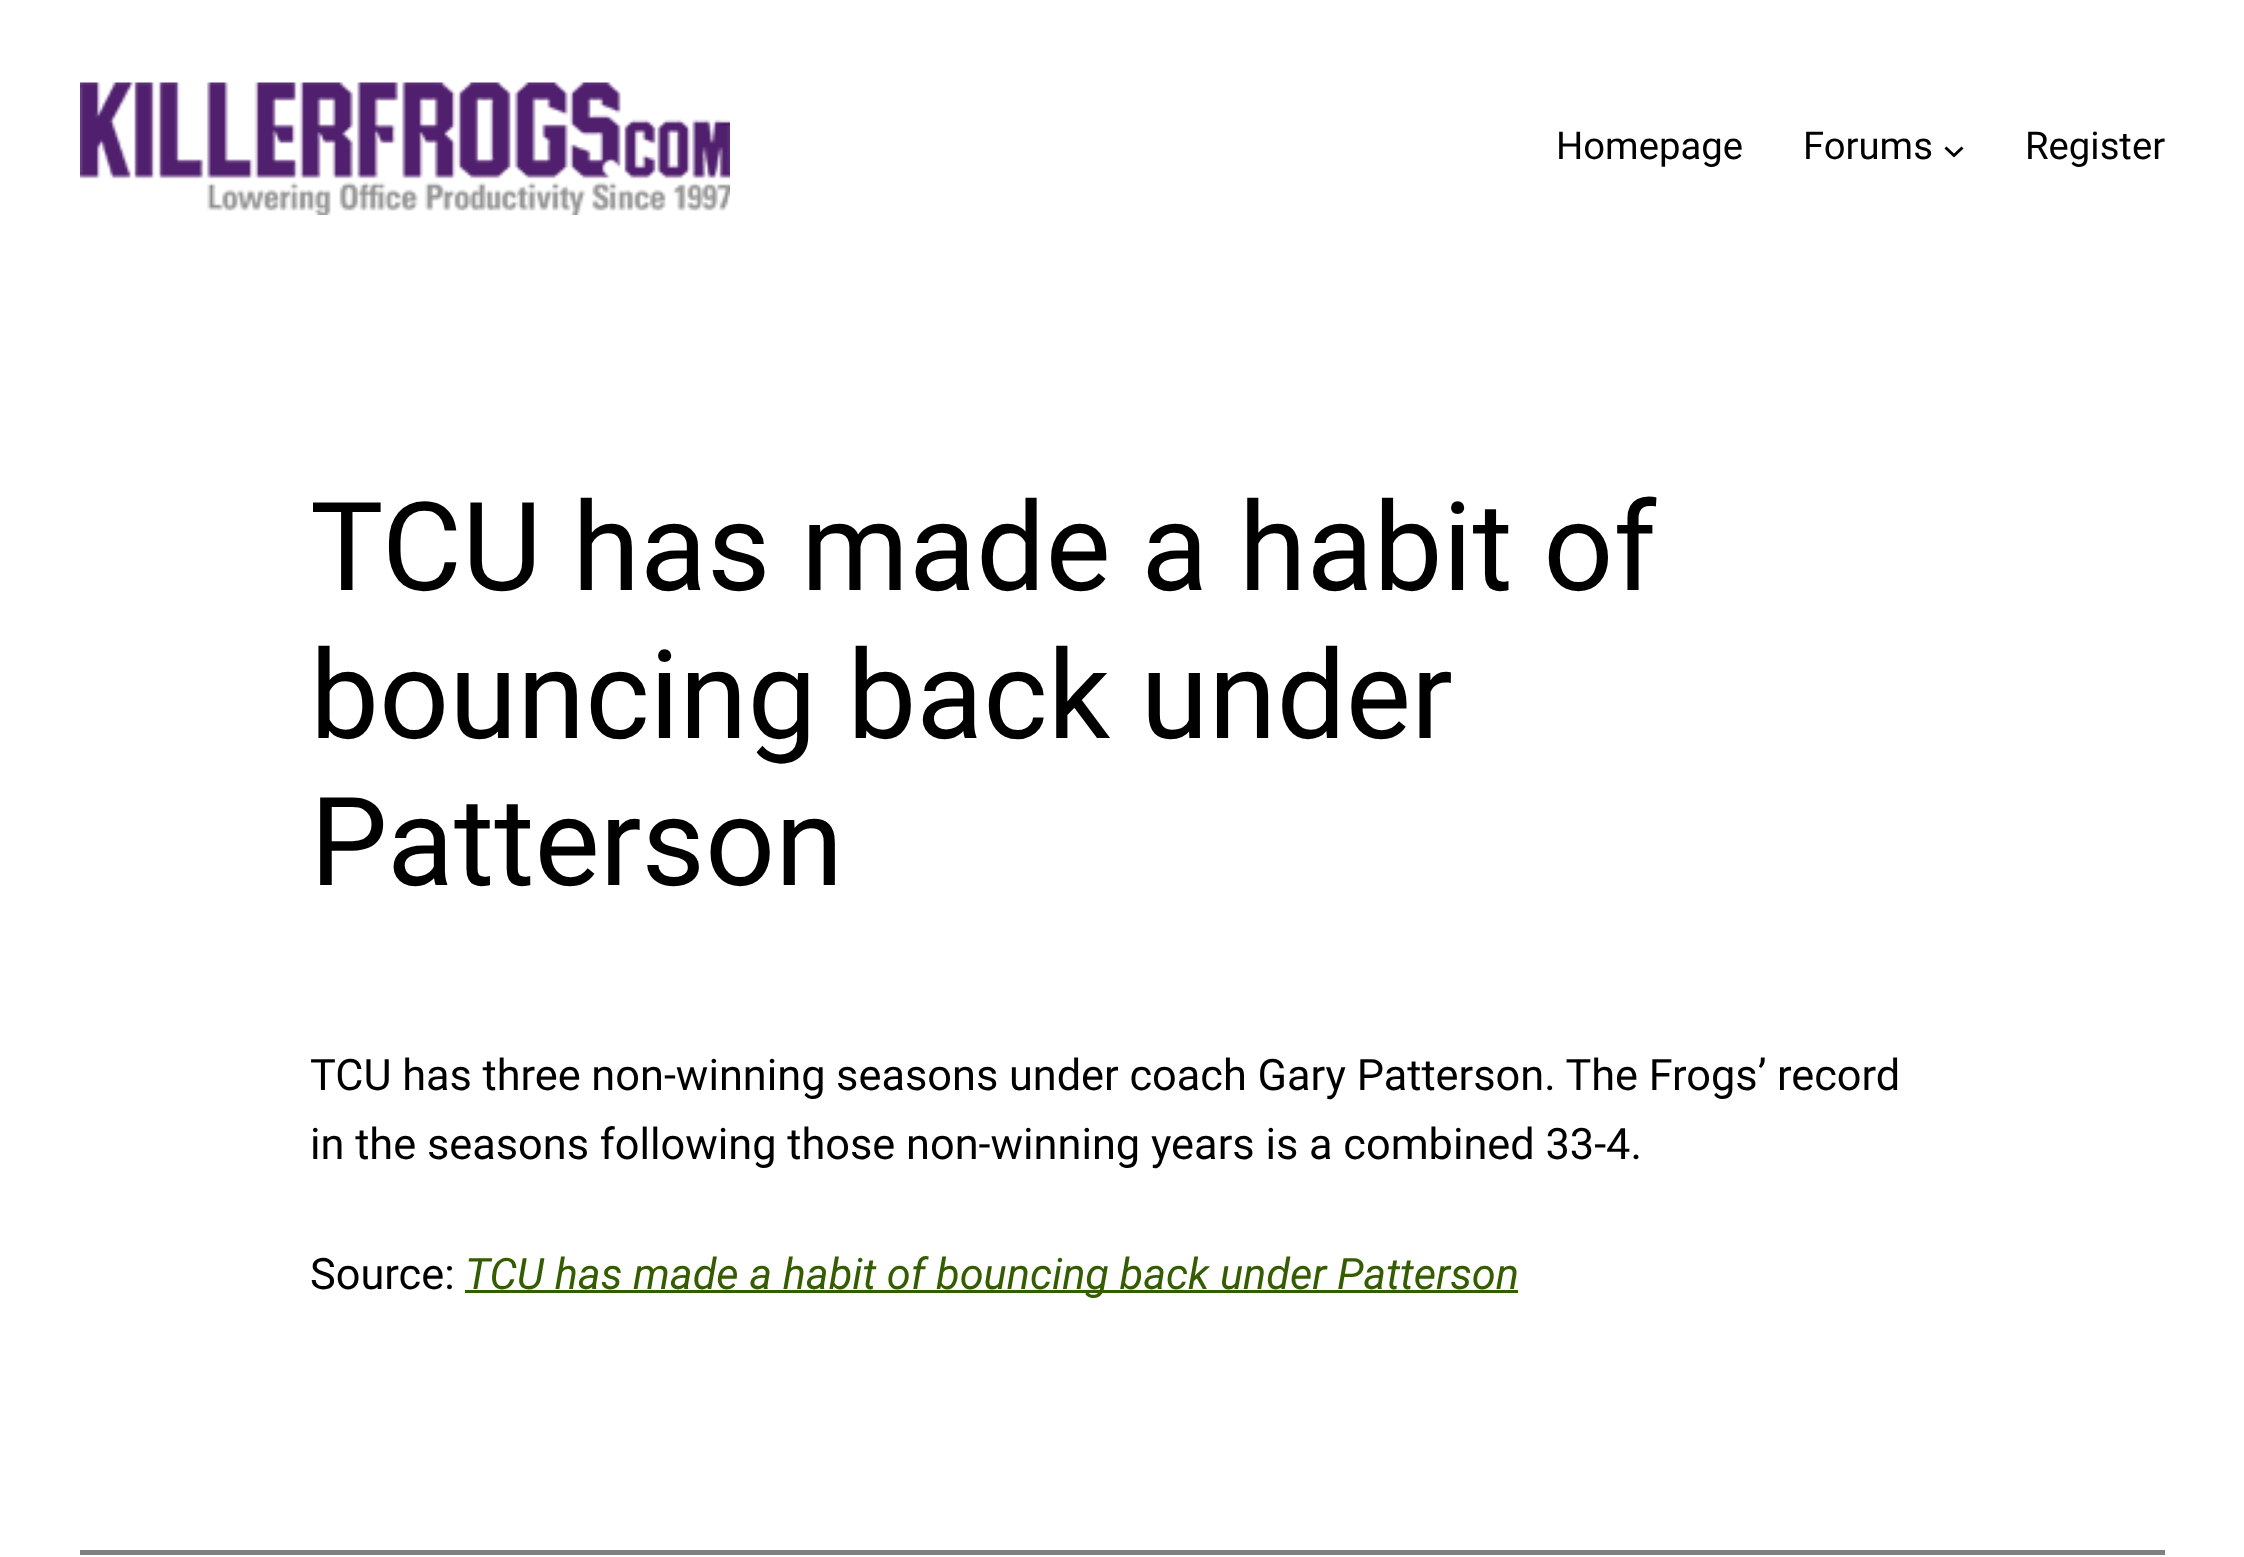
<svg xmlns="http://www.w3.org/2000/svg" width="2244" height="1557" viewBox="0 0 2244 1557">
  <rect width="100%" height="100%" fill="#ffffff"/>
  <image x="80" y="82" width="650" height="133" href="img1.png"/>
  <text x="1556" y="159" font-family="Roboto" font-size="38.25" fill="#000000">Homepage</text>
  <text x="1803" y="159" font-family="Roboto" font-size="38.25" fill="#000000">Forums</text>
  <path d="M1945.5 147.5L1954 155.5L1962.5 147.5" fill="none" stroke="#000000" stroke-width="2.9"/>
  <text x="2025" y="159" font-family="Roboto" font-size="38.25" fill="#000000">Register</text>
  <text x="310" y="590" font-family="Roboto" font-size="123.1" fill="#000000">TCU has made a habit of</text>
  <text x="310" y="738" font-family="Roboto" font-size="123.1" fill="#000000">bouncing back under</text>
  <text x="310" y="885" font-family="Roboto" font-size="123.1" fill="#000000">Patterson</text>
  <text x="310" y="1090" word-spacing="-0.1" font-family="Roboto" font-size="43.3" fill="#000000">TCU has three non-winning seasons under coach Gary Patterson. The Frogs’ record</text>
  <text x="310" y="1159" font-family="Roboto" font-size="43.3" fill="#000000">in the seasons following those non-winning years is a combined 33-4.</text>
  <text x="310" y="1289" font-family="Roboto" font-size="43.3" fill="#000000">Source:</text>
  <rect x="465" y="1290" width="1053" height="3" fill="#345c00"/>
  <text x="465" y="1289" font-family="Roboto" font-size="43.3" font-style="italic" fill="#345c00">TCU has made a habit of bouncing back under Patterson</text>
  <rect x="80" y="1550" width="2085" height="5" fill="#808080"/>
</svg>
